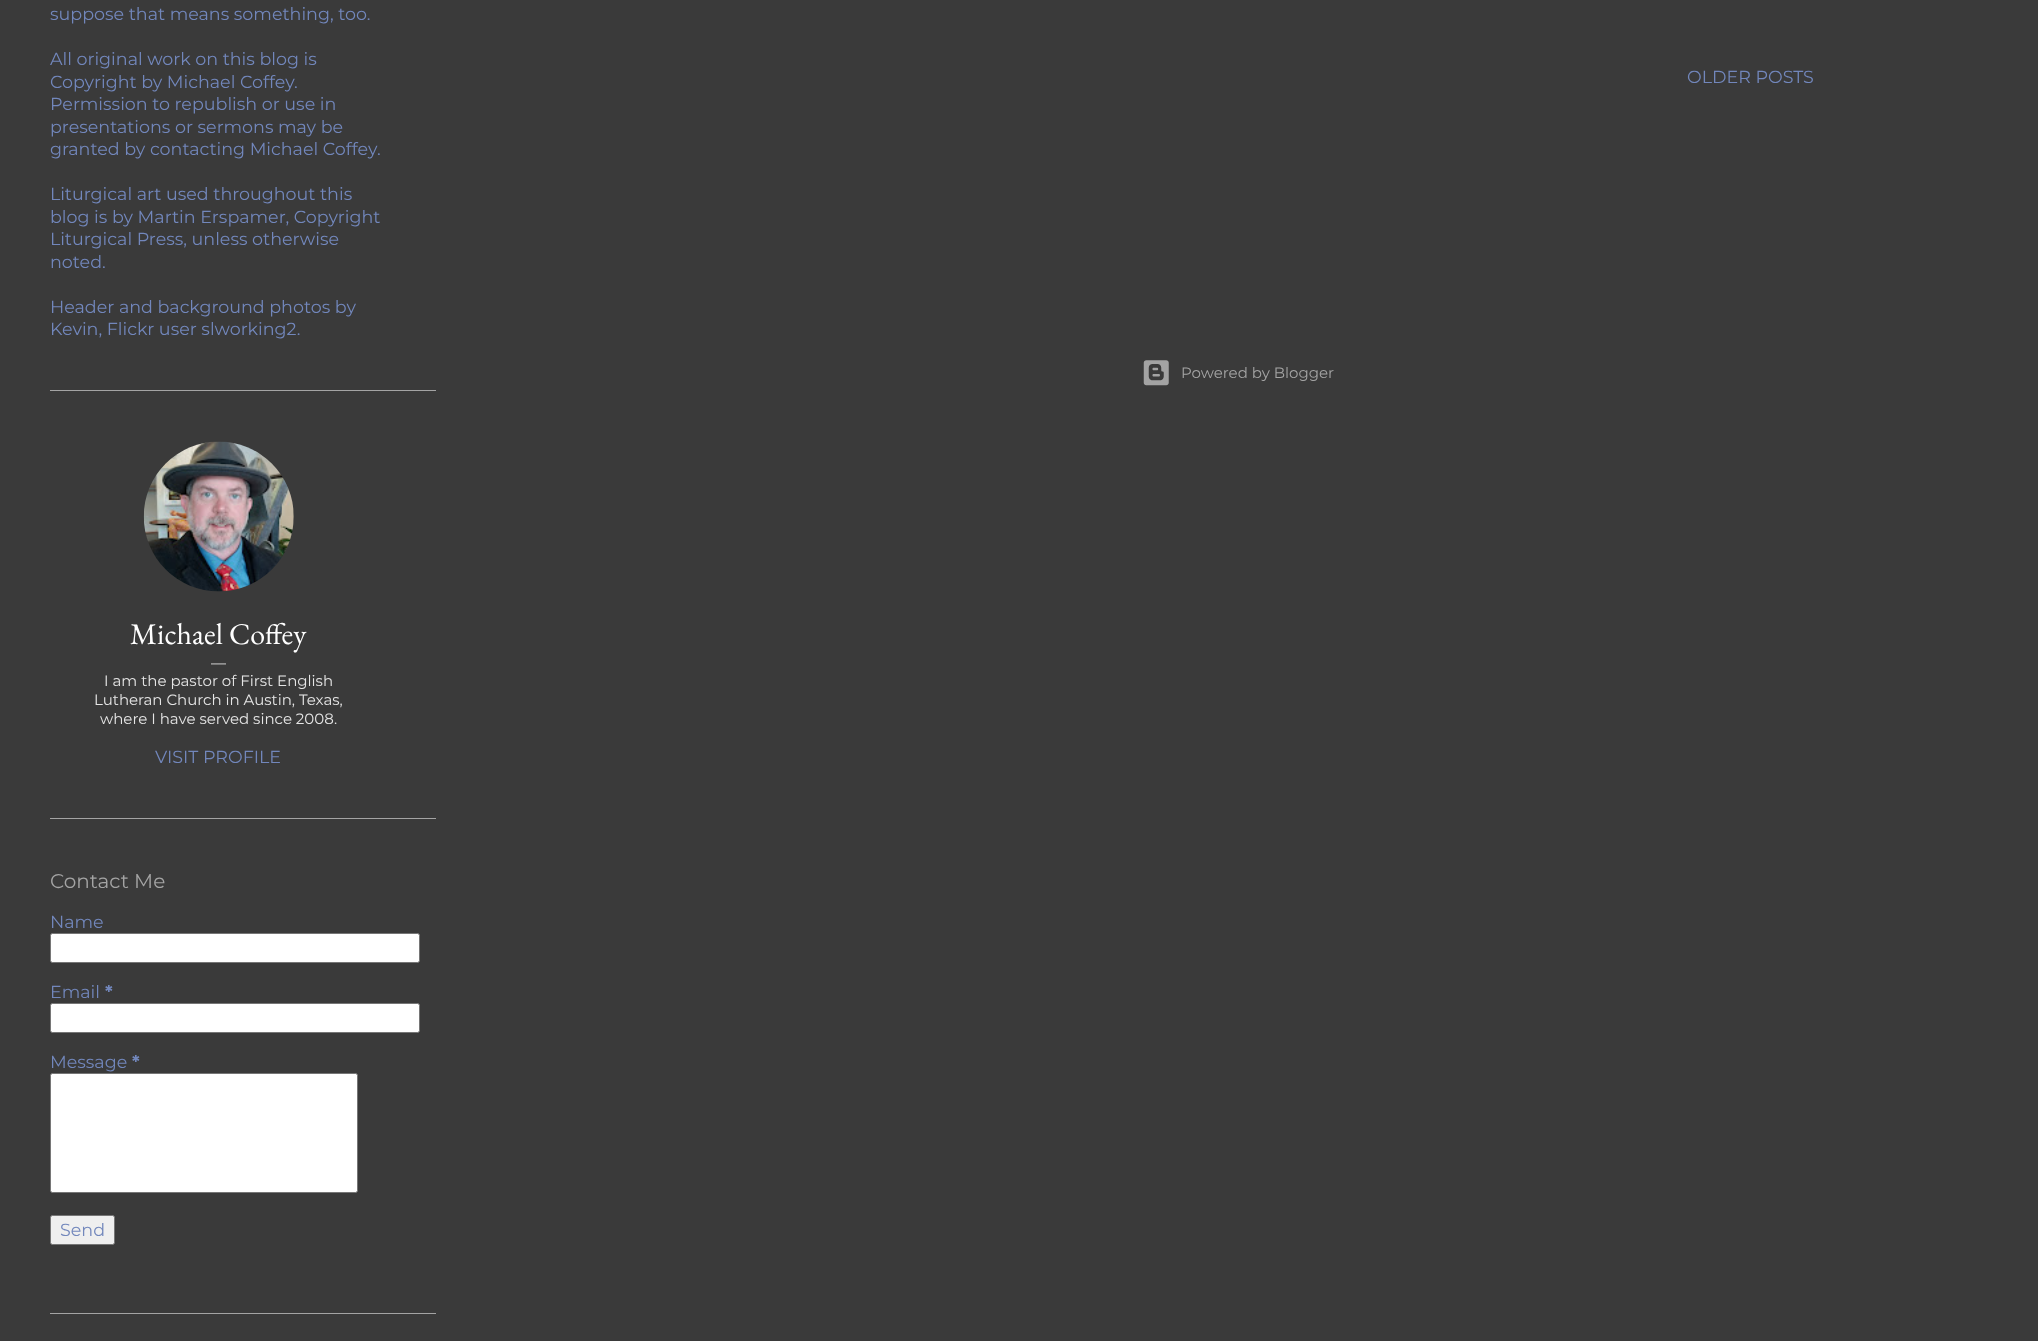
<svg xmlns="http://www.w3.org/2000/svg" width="2038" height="1341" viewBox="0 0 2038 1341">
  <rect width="100%" height="100%" fill="#3a3a3a"/>
  <text x="50" y="20" font-family="Montserrat" font-size="17.5" fill="#7287bc">suppose that means something, too.</text>
  <text x="50" y="65" font-family="Montserrat" font-size="17.5" fill="#7287bc">All original work on this blog is</text>
  <text x="50" y="88" font-family="Montserrat" font-size="17.5" fill="#7287bc">Copyright by Michael Coffey.</text>
  <text x="50" y="110" font-family="Montserrat" font-size="17.5" fill="#7287bc">Permission to republish or use in</text>
  <text x="50" y="133" font-family="Montserrat" font-size="17.5" fill="#7287bc">presentations or sermons may be</text>
  <text x="50" y="155" font-family="Montserrat" font-size="17.5" fill="#7287bc">granted by contacting Michael Coffey.</text>
  <text x="50" y="200" font-family="Montserrat" font-size="17.5" fill="#7287bc">Liturgical art used throughout this</text>
  <text x="50" y="223" font-family="Montserrat" font-size="17.5" fill="#7287bc">blog is by Martin Erspamer, Copyright</text>
  <text x="50" y="245" font-family="Montserrat" font-size="17.5" fill="#7287bc">Liturgical Press, unless otherwise</text>
  <text x="50" y="268" font-family="Montserrat" font-size="17.5" fill="#7287bc">noted.</text>
  <text x="50" y="313" font-family="Montserrat" font-size="17.5" fill="#7287bc">Header and background photos by</text>
  <text x="50" y="335" font-family="Montserrat" font-size="17.5" fill="#7287bc">Kevin, Flickr user slworking2.</text>
  <rect x="50" y="390" width="386" height="1" fill="#a4a4a4"/>
  <image x="143" y="441" width="151" height="151" href="img1.png"/>
  <text x="130" y="644" font-family="EB Garamond" font-size="30" fill="#ffffff">Michael Coffey</text>
  <text x="211" y="668" font-family="Montserrat" font-size="15" fill="#e5e5e5">—</text>
  <text x="104" y="686" font-family="Montserrat" font-size="15" fill="#e5e5e5">I am the pastor of First English</text>
  <text x="94" y="705" font-family="Montserrat" font-size="15" fill="#e5e5e5">Lutheran Church in Austin, Texas,</text>
  <text x="100" y="724" font-family="Montserrat" font-size="15" fill="#e5e5e5">where I have served since 2008.</text>
  <text x="155" y="763" font-family="Montserrat" font-size="17.5" fill="#7287bc">VISIT PROFILE</text>
  <rect x="50" y="818" width="386" height="1" fill="#a4a4a4"/>
  <text x="50" y="888" font-family="Montserrat" font-size="20" fill="#a4a4a4">Contact Me</text>
  <text x="50" y="928" font-family="Montserrat" font-size="17.5" fill="#7287bc">Name</text>
  <rect x="50.5" y="933.5" width="369" height="29" rx="2" fill="#ffffff" stroke="#767676"/>
  <text x="50" y="998" font-family="Montserrat" font-size="17.5" fill="#7287bc">Email</text>
  <text x="105" y="998" font-family="Montserrat" font-size="17.5" font-weight="bold" fill="#7287bc">*</text>
  <rect x="50.5" y="1003.5" width="369" height="29" rx="2" fill="#ffffff" stroke="#767676"/>
  <text x="50" y="1068" font-family="Montserrat" font-size="17.5" fill="#7287bc">Message</text>
  <text x="132" y="1068" font-family="Montserrat" font-size="17.5" font-weight="bold" fill="#7287bc">*</text>
  <rect x="50.5" y="1073.5" width="307" height="119" rx="2" fill="#ffffff" stroke="#767676"/>
  <rect x="50.5" y="1215.5" width="64" height="29" rx="2" fill="#efefef" stroke="#767676"/>
  <text x="60" y="1236" font-family="Montserrat" font-size="17.5" fill="#7287bc">Send</text>
  <rect x="50" y="1313" width="386" height="1" fill="#a4a4a4"/>
  <text x="1687" y="83" font-family="Montserrat" font-size="17.5" fill="#7287bc">OLDER POSTS</text>
  <image x="1143" y="360" width="26" height="26" href="img2.png"/>
  <text x="1181" y="378" font-family="Montserrat" font-size="15" fill="#a4a4a4">Powered by Blogger</text>
</svg>
